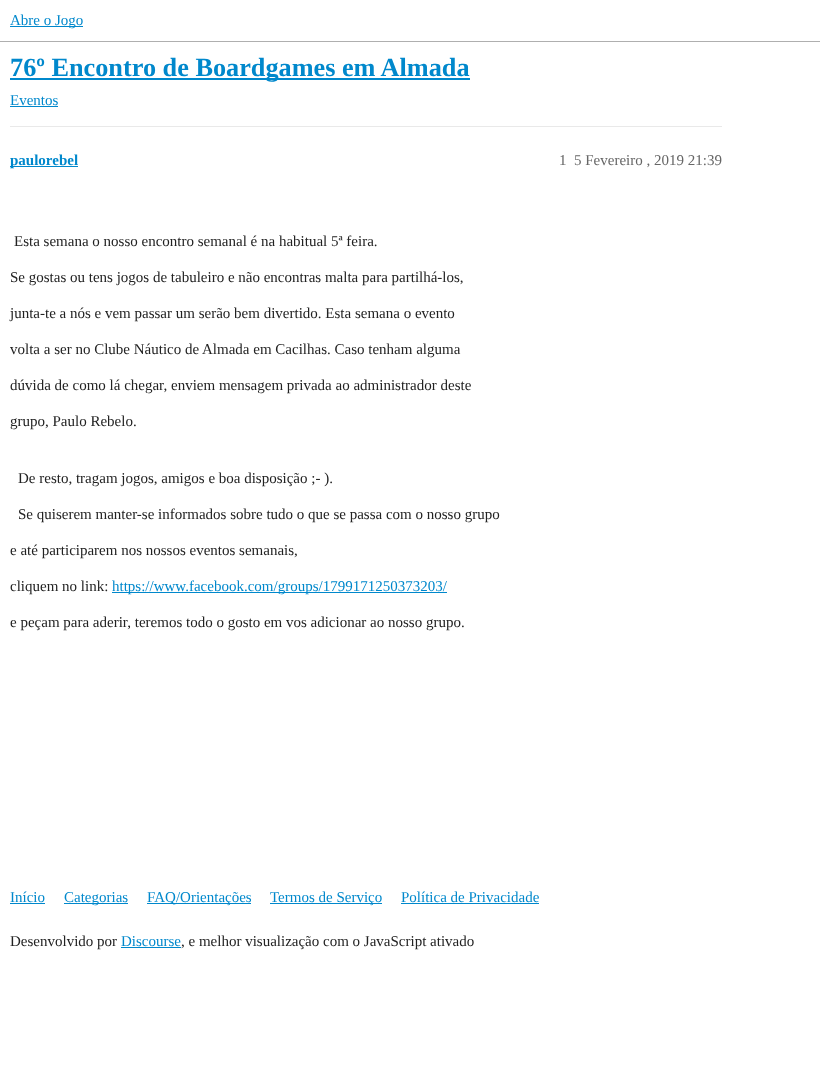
<svg xmlns="http://www.w3.org/2000/svg" width="820" height="1077" viewBox="0 0 820 1077">
  <rect width="100%" height="100%" fill="#ffffff"/>
  <rect x="0" y="41" width="820" height="1" fill="#afafaf"/>
  <rect x="10" y="26" width="73" height="1" fill="#0088cc"/>
  <text x="10" y="25" font-family="Liberation Serif" font-size="15" fill="#0088cc">Abre o Jogo</text>
  <rect x="10" y="78" width="460" height="2" fill="#0088cc"/>
  <text x="10" y="76" font-family="Liberation Serif" font-size="26.25" font-weight="bold" fill="#0088cc">76º Encontro de Boardgames em Almada</text>
  <text x="10" y="105" font-family="Liberation Serif" font-size="15" fill="#0088cc">Eventos</text>
  <rect x="10" y="106" width="48" height="1" fill="#0088cc"/>
  <rect x="10" y="126" width="712" height="1" fill="#e9e9e9"/>
  <rect x="10" y="166" width="68" height="1" fill="#0088cc"/>
  <text x="10" y="165" font-family="Liberation Serif" font-size="15" font-weight="bold" fill="#0088cc">paulorebel</text>
  <text x="559" y="165" font-family="Liberation Serif" font-size="15" fill="#666666">1</text>
  <text x="574" y="165" font-family="Liberation Serif" font-size="15" fill="#666666">5 Fevereiro , 2019 21:39</text>
  <text x="14" y="246" font-family="Liberation Serif" font-size="15" fill="#222222">Esta semana o nosso encontro semanal é na habitual 5ª feira.</text>
  <text x="10" y="282" font-family="Liberation Serif" font-size="15" fill="#222222">Se gostas ou tens jogos de tabuleiro e não encontras malta para partilhá-los,</text>
  <text x="10" y="318" font-family="Liberation Serif" font-size="15" fill="#222222">junta-te a nós e vem passar um serão bem divertido. Esta semana o evento</text>
  <text x="10" y="354" font-family="Liberation Serif" font-size="15" fill="#222222">volta a ser no Clube Náutico de Almada em Cacilhas. Caso tenham alguma</text>
  <text x="10" y="390" font-family="Liberation Serif" font-size="15" fill="#222222">dúvida de como lá chegar, enviem mensagem privada ao administrador deste</text>
  <text x="10" y="426" font-family="Liberation Serif" font-size="15" fill="#222222">grupo, Paulo Rebelo.</text>
  <text x="18" y="483" font-family="Liberation Serif" font-size="15" fill="#222222">De resto, tragam jogos, amigos e boa disposição ;- ).</text>
  <text x="18" y="519" font-family="Liberation Serif" font-size="15" fill="#222222">Se quiserem manter-se informados sobre tudo o que se passa com o nosso grupo</text>
  <text x="10" y="555" font-family="Liberation Serif" font-size="15" fill="#222222">e até participarem nos nossos eventos semanais,</text>
  <text x="10" y="591" font-family="Liberation Serif" font-size="15" fill="#222222">cliquem no link:</text>
  <rect x="112" y="592" width="335" height="1" fill="#0088cc"/>
  <text x="112" y="591" font-family="Liberation Serif" font-size="15" fill="#0088cc">https://www.facebook.com/groups/1799171250373203/</text>
  <text x="10" y="627" font-family="Liberation Serif" font-size="15" fill="#222222">e peçam para aderir, teremos todo o gosto em vos adicionar ao nosso grupo.</text>
  <text x="10" y="902" font-family="Liberation Serif" font-size="15" fill="#0088cc">Início</text>
  <rect x="10" y="903" width="35" height="1" fill="#0088cc"/>
  <rect x="64" y="903" width="64" height="1" fill="#0088cc"/>
  <text x="64" y="902" font-family="Liberation Serif" font-size="15" fill="#0088cc">Categorias</text>
  <rect x="147" y="903" width="104" height="1" fill="#0088cc"/>
  <text x="147" y="902" font-family="Liberation Serif" font-size="15" fill="#0088cc">FAQ/Orientações</text>
  <rect x="270" y="903" width="112" height="1" fill="#0088cc"/>
  <text x="270" y="902" font-family="Liberation Serif" font-size="15" fill="#0088cc">Termos de Serviço</text>
  <text x="401" y="902" font-family="Liberation Serif" font-size="15" fill="#0088cc">Política de Privacidade</text>
  <rect x="401" y="903" width="138" height="1" fill="#0088cc"/>
  <text x="10" y="946" font-family="Liberation Serif" font-size="15" fill="#222222">Desenvolvido por</text>
  <text x="121" y="946" font-family="Liberation Serif" font-size="15" fill="#0088cc">Discourse</text>
  <rect x="121" y="947" width="60" height="1" fill="#0088cc"/>
  <text x="181" y="946" font-family="Liberation Serif" font-size="15" fill="#222222">, e melhor visualização com o JavaScript ativado</text>
</svg>
